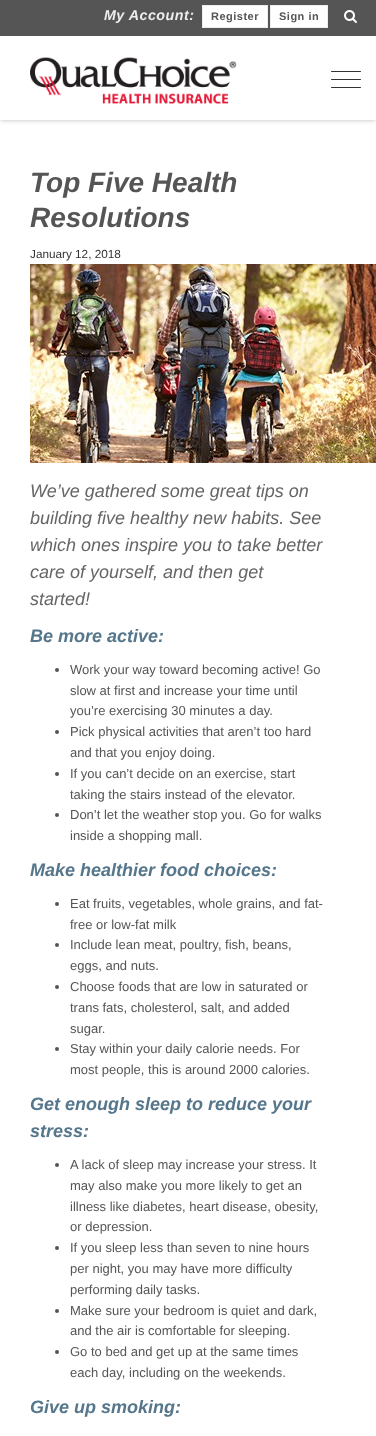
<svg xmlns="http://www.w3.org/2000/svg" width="376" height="1436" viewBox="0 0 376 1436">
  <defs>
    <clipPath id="clip1"><rect x="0" y="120" width="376" height="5"/></clipPath>
    <filter id="blur1" x="-50%" y="-200%" width="200%" height="500%"><feGaussianBlur stdDeviation="2.5"/></filter>
  </defs>
  <rect width="100%" height="100%" fill="#ffffff"/>
  <g clip-path="url(#clip1)">
    <rect x="0" y="0" width="376" height="120" fill="#bbbbbb" filter="url(#blur1)"/>
  </g>
  <rect x="0" y="0" width="376" height="36" fill="#555555"/>
  <text x="104" y="20" font-family="Liberation Sans" font-size="14.25" font-weight="bold" font-style="italic" letter-spacing="0.5" fill="#eeeeee">My Account:</text>
  <rect x="202.5" y="5.5" width="65" height="22" fill="#ffffff" stroke="#eeeeee"/>
  <text x="211" y="20" font-family="Liberation Sans" font-size="11" font-weight="bold" letter-spacing="0.5" fill="#555555">Register</text>
  <rect x="270.5" y="5.5" width="57" height="22" fill="#ffffff" stroke="#eeeeee"/>
  <text x="279" y="20" font-family="Liberation Sans" font-size="11" font-weight="bold" letter-spacing="0.5" fill="#555555">Sign in</text>
  <image x="344" y="10" width="13" height="13" href="img1.png"/>
  <image x="30" y="57" width="207" height="48" href="img2.png"/>
  <rect x="331" y="71" width="30" height="1" rx="0.5" fill="#333333"/>
  <rect x="331" y="79" width="30" height="1" rx="0.5" fill="#333333"/>
  <rect x="331" y="87" width="30" height="1" rx="0.5" fill="#333333"/>
  <text x="30" y="192" font-family="Liberation Sans" font-size="28" font-weight="bold" font-style="italic" fill="#555555">Top Five Health</text>
  <text x="30" y="227" font-family="Liberation Sans" font-size="28" font-weight="bold" font-style="italic" fill="#555555">Resolutions</text>
  <text x="30" y="258" font-family="Liberation Sans" font-size="11.75" fill="#333333">January 12, 2018</text>
  <image x="30" y="264" width="346" height="199" href="img3.png"/>
  <text x="30" y="497" font-family="Liberation Sans" font-size="18" font-style="italic" fill="#666666">We’ve gathered some great tips on</text>
  <text x="30" y="524" font-family="Liberation Sans" font-size="18" font-style="italic" fill="#666666">building five healthy new habits. See</text>
  <text x="30" y="551" font-family="Liberation Sans" font-size="18" font-style="italic" fill="#666666">which ones inspire you to take better</text>
  <text x="30" y="578" font-family="Liberation Sans" font-size="18" font-style="italic" fill="#666666">care of yourself, and then get</text>
  <text x="30" y="605" font-family="Liberation Sans" font-size="18" font-style="italic" fill="#666666">started!</text>
  <text x="30" y="642" font-family="Liberation Sans" font-size="18" font-weight="bold" font-style="italic" fill="#55768b">Be more active:</text>
  <circle cx="57" cy="670" r="2" fill="#555555"/>
  <text x="70" y="674" font-family="Liberation Sans" font-size="13" fill="#555555">Work your way toward becoming active! Go</text>
  <text x="70" y="695" font-family="Liberation Sans" font-size="13" fill="#555555">slow at first and increase your time until</text>
  <text x="70" y="715" font-family="Liberation Sans" font-size="13" fill="#555555">you’re exercising 30 minutes a day.</text>
  <circle cx="57" cy="732" r="2" fill="#555555"/>
  <text x="70" y="736" font-family="Liberation Sans" font-size="13" fill="#555555">Pick physical activities that aren’t too hard</text>
  <text x="70" y="757" font-family="Liberation Sans" font-size="13" fill="#555555">and that you enjoy doing.</text>
  <circle cx="57" cy="774" r="2" fill="#555555"/>
  <text x="70" y="778" font-family="Liberation Sans" font-size="13" fill="#555555">If you can’t decide on an exercise, start</text>
  <text x="70" y="799" font-family="Liberation Sans" font-size="13" fill="#555555">taking the stairs instead of the elevator.</text>
  <circle cx="57" cy="815" r="2" fill="#555555"/>
  <text x="70" y="819" font-family="Liberation Sans" font-size="13" fill="#555555">Don’t let the weather stop you. Go for walks</text>
  <text x="70" y="840" font-family="Liberation Sans" font-size="13" fill="#555555">inside a shopping mall.</text>
  <text x="30" y="876" font-family="Liberation Sans" font-size="18" font-weight="bold" font-style="italic" fill="#55768b">Make healthier food choices:</text>
  <circle cx="57" cy="904" r="2" fill="#555555"/>
  <text x="70" y="908" font-family="Liberation Sans" font-size="13" fill="#555555">Eat fruits, vegetables, whole grains, and fat-</text>
  <text x="70" y="929" font-family="Liberation Sans" font-size="13" fill="#555555">free or low-fat milk</text>
  <circle cx="57" cy="945" r="2" fill="#555555"/>
  <text x="70" y="949" font-family="Liberation Sans" font-size="13" fill="#555555">Include lean meat, poultry, fish, beans,</text>
  <text x="70" y="970" font-family="Liberation Sans" font-size="13" fill="#555555">eggs, and nuts.</text>
  <circle cx="57" cy="987" r="2" fill="#555555"/>
  <text x="70" y="991" font-family="Liberation Sans" font-size="13" fill="#555555">Choose foods that are low in saturated or</text>
  <text x="70" y="1012" font-family="Liberation Sans" font-size="13" fill="#555555">trans fats, cholesterol, salt, and added</text>
  <text x="70" y="1033" font-family="Liberation Sans" font-size="13" fill="#555555">sugar.</text>
  <circle cx="57" cy="1049" r="2" fill="#555555"/>
  <text x="70" y="1053" font-family="Liberation Sans" font-size="13" fill="#555555">Stay within your daily calorie needs. For</text>
  <text x="70" y="1074" font-family="Liberation Sans" font-size="13" fill="#555555">most people, this is around 2000 calories.</text>
  <text x="30" y="1110" font-family="Liberation Sans" font-size="18" font-weight="bold" font-style="italic" fill="#55768b">Get enough sleep to reduce your</text>
  <text x="30" y="1137" font-family="Liberation Sans" font-size="18" font-weight="bold" font-style="italic" fill="#55768b">stress:</text>
  <circle cx="57" cy="1165" r="2" fill="#555555"/>
  <text x="70" y="1169" font-family="Liberation Sans" font-size="13" fill="#555555">A lack of sleep may increase your stress. It</text>
  <text x="70" y="1190" font-family="Liberation Sans" font-size="13" fill="#555555">may also make you more likely to get an</text>
  <text x="70" y="1211" font-family="Liberation Sans" font-size="13" fill="#555555">illness like diabetes, heart disease, obesity,</text>
  <text x="70" y="1231" font-family="Liberation Sans" font-size="13" fill="#555555">or depression.</text>
  <circle cx="57" cy="1248" r="2" fill="#555555"/>
  <text x="70" y="1252" font-family="Liberation Sans" font-size="13" fill="#555555">If you sleep less than seven to nine hours</text>
  <text x="70" y="1273" font-family="Liberation Sans" font-size="13" fill="#555555">per night, you may have more difficulty</text>
  <text x="70" y="1294" font-family="Liberation Sans" font-size="13" fill="#555555">performing daily tasks.</text>
  <circle cx="57" cy="1311" r="2" fill="#555555"/>
  <text x="70" y="1315" font-family="Liberation Sans" font-size="13" fill="#555555">Make sure your bedroom is quiet and dark,</text>
  <text x="70" y="1335" font-family="Liberation Sans" font-size="13" fill="#555555">and the air is comfortable for sleeping.</text>
  <circle cx="57" cy="1352" r="2" fill="#555555"/>
  <text x="70" y="1356" font-family="Liberation Sans" font-size="13" fill="#555555">Go to bed and get up at the same times</text>
  <text x="70" y="1377" font-family="Liberation Sans" font-size="13" fill="#555555">each day, including on the weekends.</text>
  <text x="30" y="1413" font-family="Liberation Sans" font-size="18" font-weight="bold" font-style="italic" fill="#55768b">Give up smoking:</text>
</svg>
